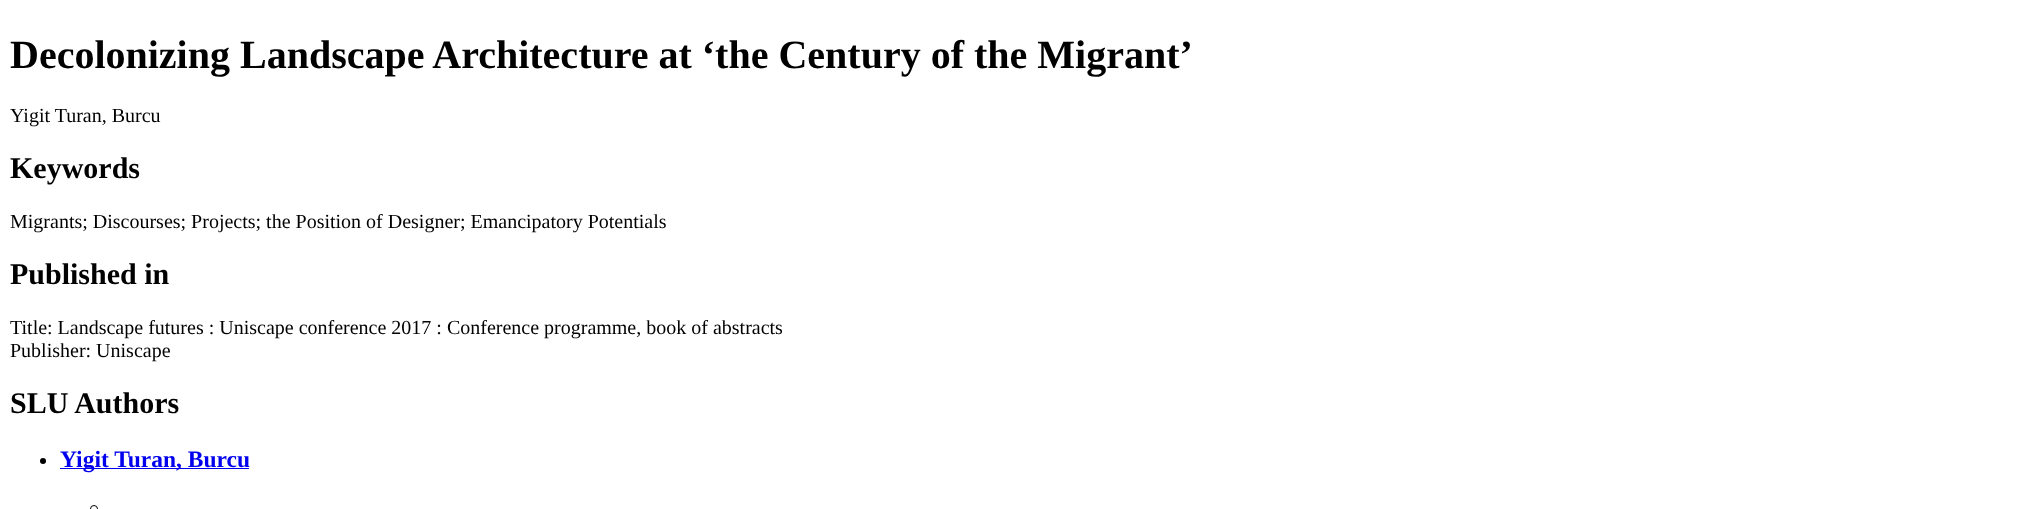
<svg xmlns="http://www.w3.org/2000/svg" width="2023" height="509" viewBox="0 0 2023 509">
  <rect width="100%" height="100%" fill="#ffffff"/>
  <text x="10" y="68" font-family="Liberation Serif" font-size="40" font-weight="bold" fill="#000000">Decolonizing Landscape Architecture at ‘the Century of the Migrant’</text>
  <text x="10" y="122" font-family="Liberation Serif" font-size="20" fill="#000000">Yigit Turan, Burcu</text>
  <text x="10" y="178" font-family="Liberation Serif" font-size="30" font-weight="bold" fill="#000000">Keywords</text>
  <text x="10" y="228" font-family="Liberation Serif" font-size="20" fill="#000000">Migrants; Discourses; Projects; the Position of Designer; Emancipatory Potentials</text>
  <text x="10" y="284" font-family="Liberation Serif" font-size="30" font-weight="bold" fill="#000000">Published in</text>
  <text x="10" y="334" font-family="Liberation Serif" font-size="20" fill="#000000">Title: Landscape futures : Uniscape conference 2017 : Conference programme, book of abstracts</text>
  <text x="10" y="357" font-family="Liberation Serif" font-size="20" fill="#000000">Publisher: Uniscape</text>
  <text x="10" y="413" font-family="Liberation Serif" font-size="30" font-weight="bold" fill="#000000">SLU Authors</text>
  <circle cx="43" cy="461" r="3" fill="#000000"/>
  <rect x="60" y="468" width="189" height="1" fill="#0000ee"/>
  <text x="60" y="467" font-family="Liberation Serif" font-size="23.5" font-weight="bold" fill="#0000ee">Yigit Turan, Burcu</text>
  <circle cx="94" cy="509" r="3.5" fill="none" stroke="#000000"/>
</svg>
